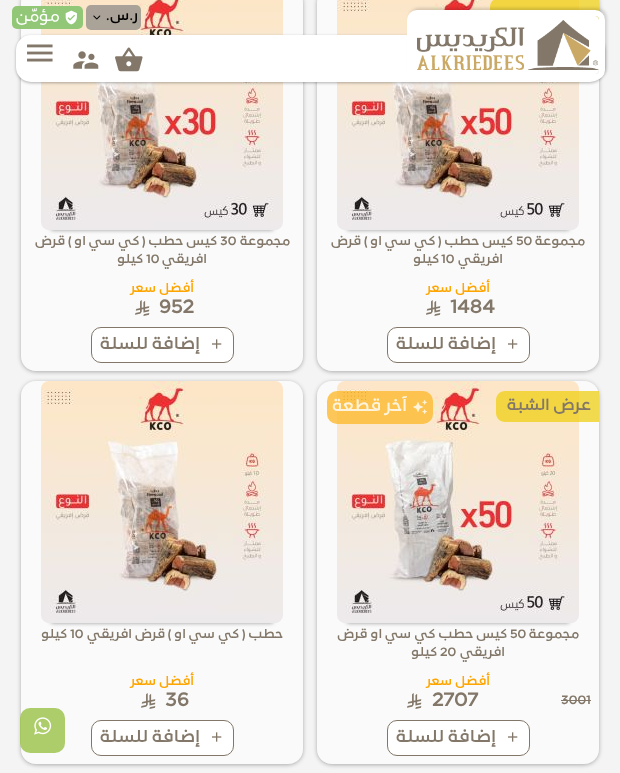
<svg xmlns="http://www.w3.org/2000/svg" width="620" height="773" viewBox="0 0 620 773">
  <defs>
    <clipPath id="clip1"><path d="M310 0H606V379H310ZM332-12H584C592.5-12 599-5.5 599 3V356C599 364.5 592.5 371 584 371H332C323.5 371 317 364.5 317 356V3C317-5.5 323.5-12 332-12Z" clip-rule="evenodd"/></clipPath>
    <filter id="blur1" x="-50%" y="-200%" width="200%" height="500%"><feGaussianBlur stdDeviation="2"/></filter>
    <clipPath id="clip2"><path d="M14 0H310V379H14ZM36-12H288C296.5-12 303-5.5 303 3V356C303 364.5 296.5 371 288 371H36C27.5 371 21 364.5 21 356V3C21-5.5 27.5-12 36-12Z" clip-rule="evenodd"/></clipPath>
    <filter id="blur2" x="-50%" y="-200%" width="200%" height="500%"><feGaussianBlur stdDeviation="1.5"/></filter>
    <clipPath id="clip3"><path d="M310 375H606V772H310ZM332 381H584C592.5 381 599 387.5 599 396V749C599 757.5 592.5 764 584 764H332C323.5 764 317 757.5 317 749V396C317 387.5 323.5 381 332 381Z" clip-rule="evenodd"/></clipPath>
    <clipPath id="clip4"><path d="M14 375H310V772H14ZM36 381H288C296.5 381 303 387.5 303 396V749C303 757.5 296.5 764 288 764H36C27.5 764 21 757.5 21 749V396C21 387.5 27.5 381 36 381Z" clip-rule="evenodd"/></clipPath>
  </defs>
  <rect width="100%" height="100%" fill="#f5f4f4"/>
  <g clip-path="url(#clip1)">
    <rect x="317" y="-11" width="282" height="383" rx="15" fill="#000000" fill-opacity="0.3" filter="url(#blur1)"/>
  </g>
  <rect x="317" y="-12" width="282" height="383" rx="15" fill="#ffffff" fill-opacity="0.5"/>
  <rect x="347" y="8" width="222" height="222" fill="#000000" fill-opacity="0.4" filter="url(#blur1)"/>
  <image x="337" y="0" width="242" height="230" href="img7.png"/>
  <g clip-path="url(#clip2)">
    <rect x="21" y="-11" width="282" height="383" rx="15" fill="#000000" fill-opacity="0.3" filter="url(#blur1)"/>
  </g>
  <rect x="21" y="-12" width="282" height="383" rx="15" fill="#ffffff" fill-opacity="0.5"/>
  <rect x="51" y="8" width="222" height="222" fill="#000000" fill-opacity="0.4" filter="url(#blur1)"/>
  <image x="41" y="0" width="242" height="230" href="img10.png"/>
  <rect x="16" y="36" width="589" height="47" rx="15" fill="#000000" fill-opacity="0.3" filter="url(#blur2)"/>
  <rect x="16" y="35" width="589" height="47" rx="15" fill="#ffffff"/>
  <path d="M499-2H599V29H499C494 29 490 25 490 20V7C490 2 494-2 499-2Z" fill="#efce12" fill-opacity="0.74"/>
  <rect x="409" y="8" width="198" height="70" rx="10" fill="#000000" fill-opacity="0.15" filter="url(#blur2)"/>
  <path d="M417 16H595C597 16 599 18 599 20V70C599 72 597 74 595 74H417Z" fill="#ffffff"/>
  <image x="417" y="20" width="182" height="50" href="img1.png"/>
  <path d="M417 13H595C599 13 602 16 602 20V70C602 74 599 77 595 77H410V20C410 16 413 13 417 13Z" fill="none" stroke="#ffffff" stroke-width="6"/>
  <rect x="413" y="15" width="4" height="65" fill="#ffffff"/>
  <image x="115" y="47" width="28" height="25" href="img2.png"/>
  <image x="73" y="51" width="26" height="18" href="img3.png"/>
  <image x="27" y="44" width="26" height="18" href="img4.png"/>
  <rect x="86" y="5" width="55" height="25" rx="5" fill="#7c7c7c" fill-opacity="0.64"/>
  <text x="138" y="20" font-family="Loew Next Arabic" font-size="13" font-weight="bold" direction="rtl" fill="#000000">ر.س.</text>
  <image x="93" y="15" width="8" height="5" href="img5.png"/>
  <rect x="12" y="6" width="71" height="23" rx="5" fill="#91c777"/>
  <image x="65" y="10" width="12" height="15" href="img6.png"/>
  <text x="60" y="21" font-family="Loew Next Arabic" font-size="15" font-weight="500" direction="rtl" fill="#ffffff">مؤمّن</text>
  <text x="585" y="245" font-family="Loew Next Arabic" font-size="12" font-weight="bold" direction="rtl" fill="#827768">مجموعة</text>
  <text x="516" y="245" font-family="Loew Next Arabic" font-size="12" font-weight="bold" fill="#827768">50</text>
  <text x="513" y="245" font-family="Loew Next Arabic" font-size="12" font-weight="bold" direction="rtl" fill="#827768">كيس حطب ( كي سي او ) قرض</text>
  <text x="503" y="263" font-family="Loew Next Arabic" font-size="12" font-weight="bold" direction="rtl" fill="#827768">افريقي</text>
  <text x="441" y="263" font-family="Loew Next Arabic" font-size="12" font-weight="bold" fill="#827768">10</text>
  <text x="439" y="263" font-family="Loew Next Arabic" font-size="12" font-weight="bold" direction="rtl" fill="#827768">كيلو</text>
  <text x="490" y="292" font-family="Loew Next Arabic" font-size="12" font-weight="bold" direction="rtl" fill="#ffa500">أفضل سعر</text>
  <text x="450" y="313" font-family="Loew Next Arabic" font-size="19" font-weight="bold" fill="#827768">1484</text>
  <image x="426" y="300" width="15" height="16" href="img8.png"/>
  <rect x="387.5" y="327.5" width="142" height="35" rx="9.5" fill="#ffffff" stroke="#827768"/>
  <image x="508" y="339" width="10" height="10" href="img9.png"/>
  <text x="496" y="349" font-family="Loew Next Arabic" font-size="16" font-weight="bold" direction="rtl" fill="#827768">إضافة للسلة</text>
  <text x="290" y="245" font-family="Loew Next Arabic" font-size="12" font-weight="bold" direction="rtl" fill="#827768">مجموعة</text>
  <text x="220" y="245" font-family="Loew Next Arabic" font-size="12" font-weight="bold" fill="#827768">30</text>
  <text x="217" y="245" font-family="Loew Next Arabic" font-size="12" font-weight="bold" direction="rtl" fill="#827768">كيس حطب ( كي سي او ) قرض</text>
  <text x="207" y="263" font-family="Loew Next Arabic" font-size="12" font-weight="bold" direction="rtl" fill="#827768">افريقي</text>
  <text x="146" y="263" font-family="Loew Next Arabic" font-size="12" font-weight="bold" fill="#827768">10</text>
  <text x="143" y="263" font-family="Loew Next Arabic" font-size="12" font-weight="bold" direction="rtl" fill="#827768">كيلو</text>
  <text x="194" y="292" font-family="Loew Next Arabic" font-size="12" font-weight="bold" direction="rtl" fill="#ffa500">أفضل سعر</text>
  <text x="159" y="313" font-family="Loew Next Arabic" font-size="19" font-weight="bold" fill="#827768">952</text>
  <image x="135" y="300" width="15" height="16" href="img8.png"/>
  <rect x="91.5" y="327.5" width="142" height="35" rx="9.5" fill="#ffffff" stroke="#827768"/>
  <image x="212" y="339" width="10" height="10" href="img9.png"/>
  <text x="200" y="349" font-family="Loew Next Arabic" font-size="16" font-weight="bold" direction="rtl" fill="#827768">إضافة للسلة</text>
  <g clip-path="url(#clip3)">
    <rect x="317" y="382" width="282" height="383" rx="15" fill="#000000" fill-opacity="0.3" filter="url(#blur1)"/>
  </g>
  <rect x="317" y="381" width="282" height="383" rx="15" fill="#ffffff" fill-opacity="0.5"/>
  <rect x="347" y="401" width="222" height="222" fill="#000000" fill-opacity="0.4" filter="url(#blur1)"/>
  <image x="337" y="381" width="242" height="242" href="img11.png"/>
  <path d="M505 391H599V422H505C500 422 496 418 496 413V400C496 395 500 391 505 391Z" fill="#efce12" fill-opacity="0.74"/>
  <text x="591" y="410" font-family="Loew Next Arabic" font-size="15" font-weight="bold" direction="rtl" fill="#827768">عرض الشبة</text>
  <rect x="327" y="391" width="106" height="33" rx="10" fill="#fcba2f" fill-opacity="0.8"/>
  <image x="413" y="399" width="15" height="16" href="img12.png"/>
  <text x="407" y="411" font-family="Loew Next Arabic" font-size="16" font-weight="bold" direction="rtl" fill="#fef3dc">آخر قطعة</text>
  <text x="579" y="638" font-family="Loew Next Arabic" font-size="12" font-weight="bold" direction="rtl" fill="#827768">مجموعة</text>
  <text x="510" y="638" font-family="Loew Next Arabic" font-size="12" font-weight="bold" fill="#827768">50</text>
  <text x="507" y="638" font-family="Loew Next Arabic" font-size="12" font-weight="bold" direction="rtl" fill="#827768">كيس حطب كي سي او قرض</text>
  <text x="505" y="656" font-family="Loew Next Arabic" font-size="12" font-weight="bold" direction="rtl" fill="#827768">افريقي</text>
  <text x="440" y="656" font-family="Loew Next Arabic" font-size="12" font-weight="bold" fill="#827768">20</text>
  <text x="437" y="656" font-family="Loew Next Arabic" font-size="12" font-weight="bold" direction="rtl" fill="#827768">كيلو</text>
  <text x="490" y="685" font-family="Loew Next Arabic" font-size="12" font-weight="bold" direction="rtl" fill="#ffa500">أفضل سعر</text>
  <text x="561" y="704" font-family="Loew Next Arabic" font-size="12" font-weight="bold" fill="#827768">3001</text>
  <rect x="561" y="700" width="30" height="1" fill="#827768"/>
  <text x="432" y="706" font-family="Loew Next Arabic" font-size="19" font-weight="bold" fill="#827768">2707</text>
  <image x="407" y="693" width="15" height="16" href="img8.png"/>
  <rect x="387.5" y="720.5" width="142" height="35" rx="9.5" fill="#ffffff" stroke="#827768"/>
  <image x="508" y="732" width="10" height="10" href="img9.png"/>
  <text x="496" y="742" font-family="Loew Next Arabic" font-size="16" font-weight="bold" direction="rtl" fill="#827768">إضافة للسلة</text>
  <g clip-path="url(#clip4)">
    <rect x="21" y="382" width="282" height="383" rx="15" fill="#000000" fill-opacity="0.3" filter="url(#blur1)"/>
  </g>
  <rect x="21" y="381" width="282" height="383" rx="15" fill="#ffffff" fill-opacity="0.5"/>
  <rect x="51" y="401" width="222" height="222" fill="#000000" fill-opacity="0.4" filter="url(#blur1)"/>
  <image x="41" y="381" width="242" height="242" href="img13.png"/>
  <text x="283" y="638" font-family="Loew Next Arabic" font-size="12" font-weight="bold" direction="rtl" fill="#827768">حطب ( كي سي او ) قرض افريقي</text>
  <text x="70" y="638" font-family="Loew Next Arabic" font-size="12" font-weight="bold" fill="#827768">10</text>
  <text x="67" y="638" font-family="Loew Next Arabic" font-size="12" font-weight="bold" direction="rtl" fill="#827768">كيلو</text>
  <text x="194" y="685" font-family="Loew Next Arabic" font-size="12" font-weight="bold" direction="rtl" fill="#ffa500">أفضل سعر</text>
  <text x="165" y="706" font-family="Loew Next Arabic" font-size="19" font-weight="bold" fill="#827768">36</text>
  <image x="141" y="693" width="15" height="16" href="img8.png"/>
  <rect x="91.5" y="720.5" width="142" height="35" rx="9.5" fill="#ffffff" stroke="#827768"/>
  <image x="212" y="732" width="10" height="10" href="img9.png"/>
  <text x="200" y="742" font-family="Loew Next Arabic" font-size="16" font-weight="bold" direction="rtl" fill="#827768">إضافة للسلة</text>
  <rect x="20" y="708" width="45" height="45" rx="10" fill="#98c145" fill-opacity="0.79"/>
  <image x="34" y="717" width="18" height="18" href="img14.png"/>
</svg>
